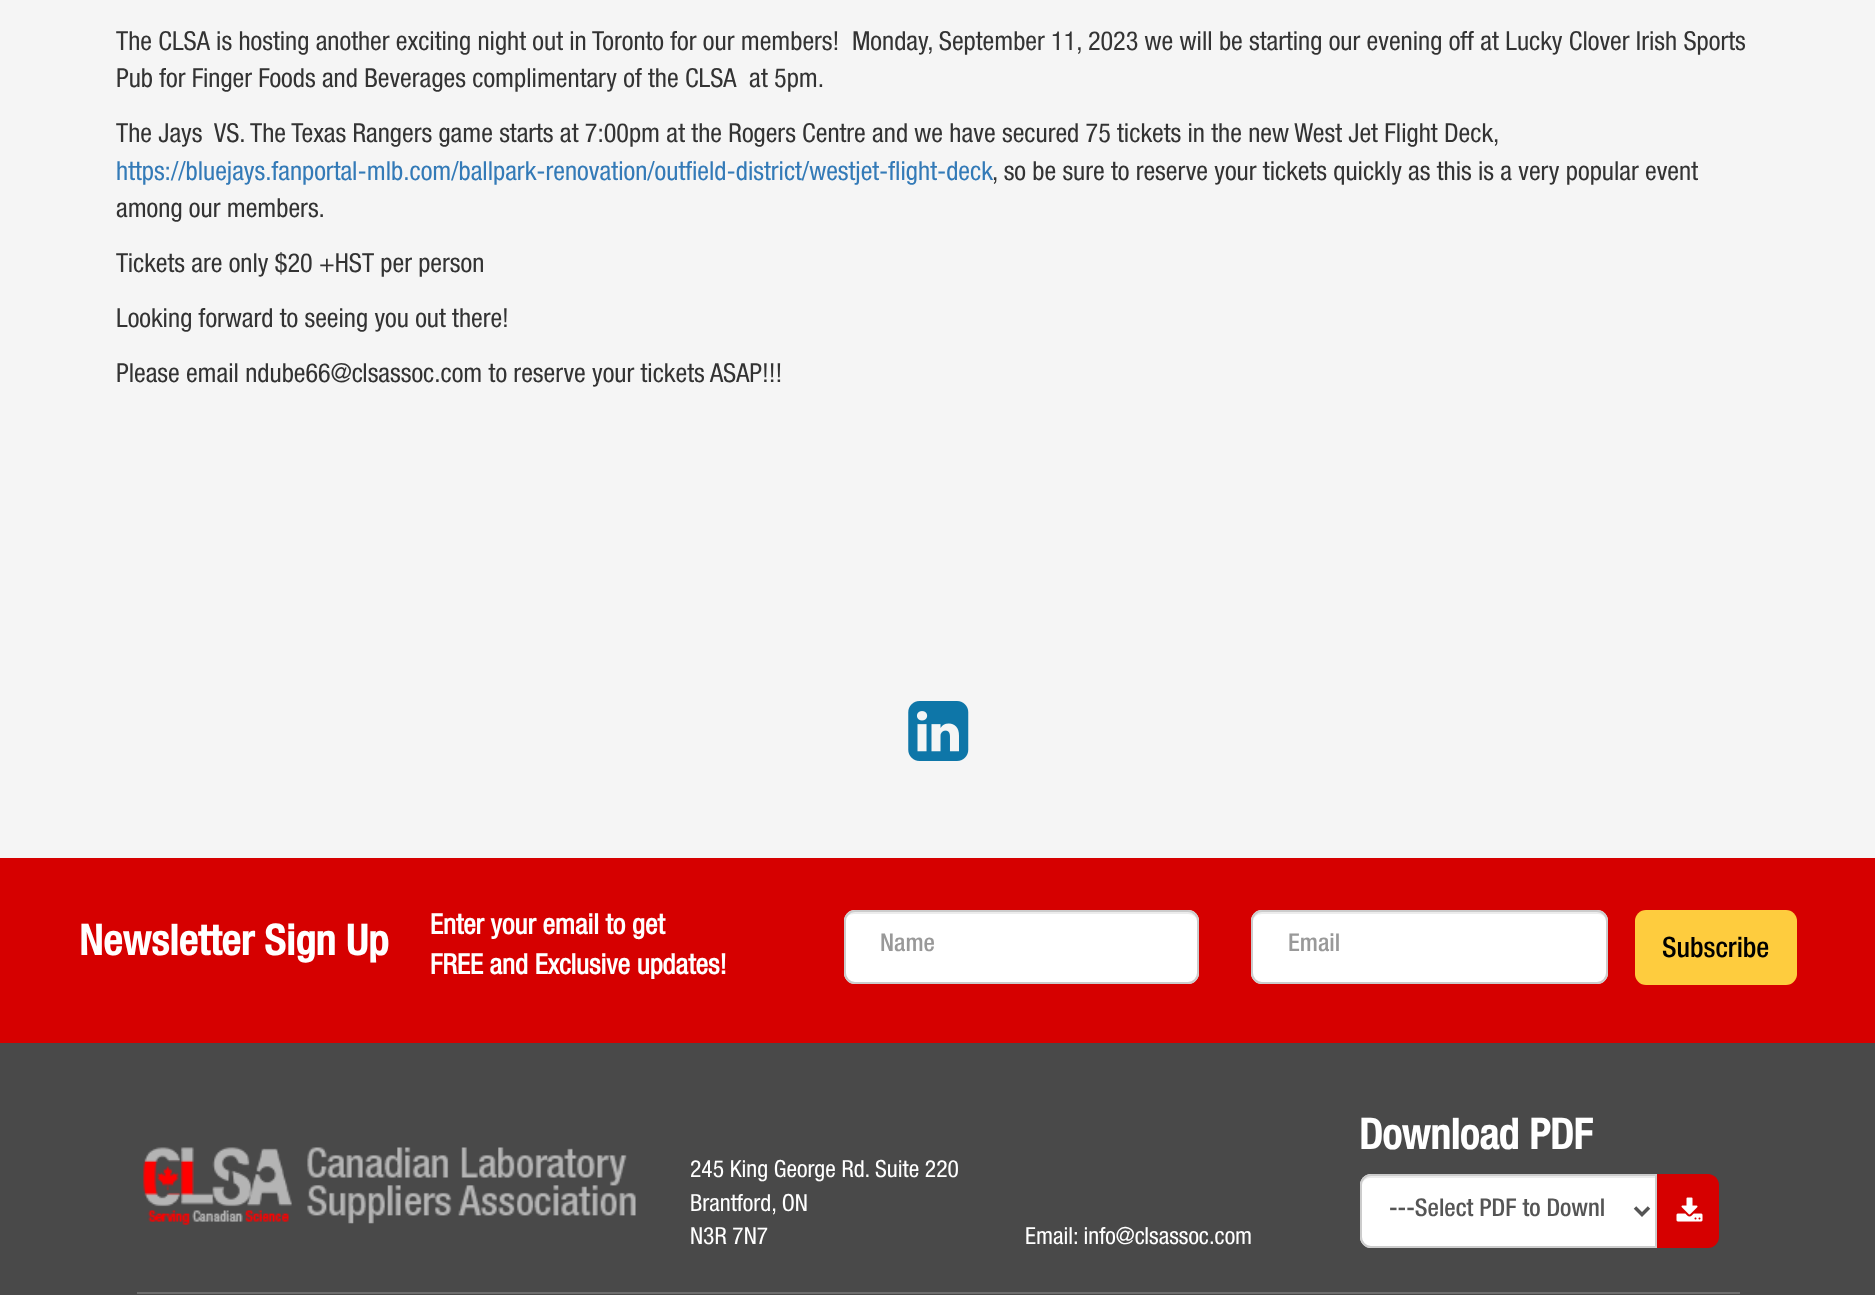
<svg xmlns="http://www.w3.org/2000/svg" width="1875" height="1295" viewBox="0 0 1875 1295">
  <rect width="100%" height="100%" fill="#f5f5f5"/>
  <text x="116" y="50" font-family="Helvetica Neue" font-size="26.25" fill="#333333" xml:space="preserve">The CLSA is hosting another exciting night out in Toronto for our members!  Monday, September 11, 2023 we will be starting our evening off at Lucky Clover Irish Sports</text>
  <text x="116" y="87" font-family="Helvetica Neue" font-size="26.25" fill="#333333" xml:space="preserve">Pub for Finger Foods and Beverages complimentary of the CLSA  at 5pm.</text>
  <text x="116" y="142" font-family="Helvetica Neue" font-size="26.25" fill="#333333" xml:space="preserve">The Jays  VS. The Texas Rangers game starts at 7:00pm at the Rogers Centre and we have secured 75 tickets in the new West Jet Flight Deck,</text>
  <text x="116" y="180" font-family="Helvetica Neue" font-size="26.25" fill="#337ab7">https://bluejays.fanportal-mlb.com/ballpark-renovation/outfield-district/westjet-flight-deck</text>
  <text x="992" y="180" font-family="Helvetica Neue" font-size="26.25" fill="#333333">, so be sure to reserve your tickets quickly as this is a very popular event</text>
  <text x="116" y="217" font-family="Helvetica Neue" font-size="26.25" fill="#333333">among our members.</text>
  <text x="116" y="272" font-family="Helvetica Neue" font-size="26.25" fill="#333333">Tickets are only $20 +HST per person</text>
  <text x="116" y="327" font-family="Helvetica Neue" font-size="26.25" fill="#333333">Looking forward to seeing you out there!</text>
  <text x="116" y="382" font-family="Helvetica Neue" font-size="26.25" fill="#333333">Please email ndube66@clsassoc.com to reserve your tickets ASAP!!!</text>
  <image x="908" y="701" width="61" height="60" href="img1.png"/>
  <rect x="0" y="1043" width="1875" height="252" fill="#494949"/>
  <rect x="0" y="858" width="1875" height="185" fill="#d60000"/>
  <text x="79" y="955" font-family="Helvetica Neue" font-size="42" font-weight="bold" fill="#ffffff">Newsletter Sign Up</text>
  <text x="430" y="934" font-family="'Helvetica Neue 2'" font-size="28" font-weight="bold" fill="#ffffff">Enter your email to get</text>
  <text x="430" y="974" font-family="'Helvetica Neue 2'" font-size="28" font-weight="bold" fill="#ffffff">FREE and Exclusive updates!</text>
  <rect x="844" y="910" width="355" height="74" rx="11" fill="#ffffff"/>
  <path d="M854 914H1188C1193 914 1197 917 1197 922V921C1197 916 1193 912 1188 912H854C849 912 845 916 845 921V922C845 917 849 914 854 914Z" fill="#ececec"/>
  <rect x="845" y="911" width="353" height="72" rx="10" fill="none" stroke="#cccccc" stroke-width="2"/>
  <text x="880" y="951" font-family="Helvetica Neue" font-size="24.5" font-weight="500" fill="#999999">Name</text>
  <rect x="1251" y="910" width="357" height="74" rx="11" fill="#ffffff"/>
  <path d="M1262 914H1598C1603 914 1606 917 1606 922V978C1607 976 1607 975 1607 973V921C1607 916 1603 912 1598 912H1262C1257 912 1253 916 1253 921V922C1253 917 1257 914 1262 914Z" fill="#ececec"/>
  <rect x="1252" y="911" width="355" height="72" rx="10" fill="none" stroke="#cccccc" stroke-width="2"/>
  <text x="1288" y="951" font-family="Helvetica Neue" font-size="24.5" font-weight="500" fill="#999999">Email</text>
  <rect x="1635" y="910" width="162" height="75" rx="11" fill="#fecc3e"/>
  <text x="1662" y="957" font-family="Helvetica Neue" font-size="28" font-weight="500" fill="#000000">Subscribe</text>
  <image x="143" y="1147" width="493" height="78" href="img2.png"/>
  <text x="690" y="1177" font-family="Helvetica Neue" font-size="23.6" fill="#ffffff">245 King George Rd. Suite 220</text>
  <text x="690" y="1211" font-family="Helvetica Neue" font-size="23.6" fill="#ffffff">Brantford, ON</text>
  <text x="690" y="1244" font-family="Helvetica Neue" font-size="23.6" fill="#ffffff">N3R 7N7</text>
  <text x="1025" y="1244" font-family="Helvetica Neue" font-size="23.6" fill="#ffffff">Email: info@clsassoc.com</text>
  <text x="1359" y="1149" font-family="Helvetica Neue" font-size="42" font-weight="bold" fill="#ffffff">Download PDF</text>
  <path d="M1371 1174H1657V1248H1371C1365 1248 1360 1243 1360 1237V1185C1360 1179 1365 1174 1371 1174Z" fill="#ffffff"/>
  <path d="M1370 1178H1656V1176H1371C1365 1176 1362 1181 1362 1186C1362 1182 1365 1178 1370 1178Z" fill="#ececec"/>
  <path d="M1371 1175H1656V1247H1371C1365.5 1247 1361 1242.5 1361 1237V1185C1361 1179.5 1365.5 1175 1371 1175Z" fill="none" stroke="#cccccc" stroke-width="2"/>
  <path d="M1635 1207.5L1642 1214.5L1649 1207.5" fill="none" stroke="#555555" stroke-width="3.5"/>
  <text x="1389" y="1216" font-family="Helvetica Neue" font-size="24.5" font-weight="500" fill="#555555">---Select PDF to Downl</text>
  <path d="M1657 1174H1708C1714 1174 1719 1179 1719 1185V1237C1719 1243 1714 1248 1708 1248H1657Z" fill="#d60000"/>
  <image x="1676" y="1197" width="27" height="25" href="img3.png"/>
  <rect x="137" y="1292" width="1603" height="2" fill="#6d6d6d"/>
</svg>
